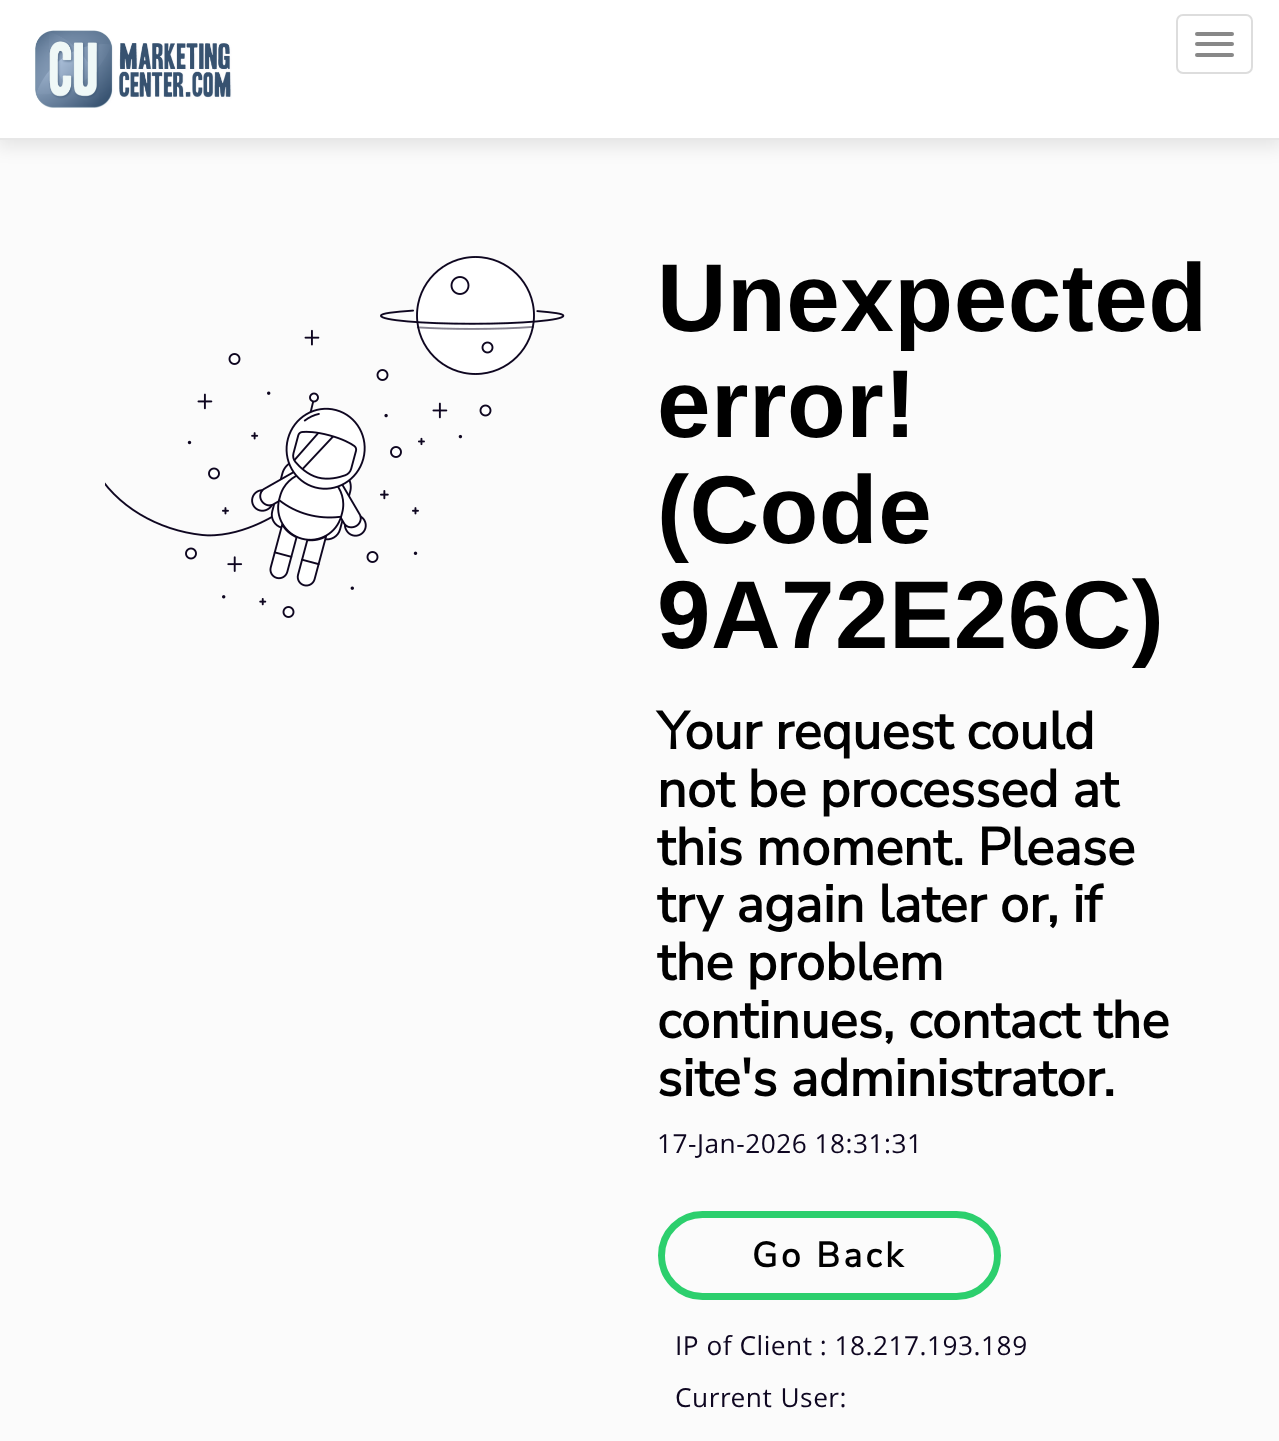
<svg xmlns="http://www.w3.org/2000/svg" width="1279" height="1441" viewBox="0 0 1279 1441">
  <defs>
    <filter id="blur1" x="-50%" y="-200%" width="200%" height="500%"><feGaussianBlur stdDeviation="9"/></filter>
  </defs>
  <rect width="100%" height="100%" fill="#fbfbfb"/>
  <rect x="-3" y="0" width="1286" height="147" fill="#000000" fill-opacity="0.09" filter="url(#blur1)"/>
  <rect x="0" y="0" width="1279" height="138" fill="#ffffff"/>
  <rect x="0" y="138" width="1279" height="2" fill="#e7e7e7"/>
  <image x="35" y="30" width="197" height="78" href="img1.png"/>
  <rect x="1177" y="15" width="75" height="58" rx="6" fill="none" stroke="#dddddd" stroke-width="2"/>
  <rect x="1195" y="32" width="39" height="4" rx="2" fill="#888888"/>
  <rect x="1195" y="42" width="39" height="4" rx="2" fill="#888888"/>
  <rect x="1195" y="53" width="39" height="4" rx="2" fill="#888888"/>
  <image x="105" y="256" width="460" height="362" href="img2.png"/>
  <text x="657" y="331" font-family="Liberation Sans" font-size="96.25" font-weight="bold" letter-spacing="0.5" fill="#000000">Unexpected</text>
  <text x="657" y="437" font-family="Liberation Sans" font-size="96.25" font-weight="bold" letter-spacing="0.5" fill="#000000">error!</text>
  <text x="657" y="543" font-family="Liberation Sans" font-size="96.25" font-weight="bold" letter-spacing="0.5" fill="#000000">(Code</text>
  <text x="657" y="648" font-family="Liberation Sans" font-size="96.25" font-weight="bold" letter-spacing="0.5" fill="#000000">9A72E26C)</text>
  <text x="657" y="749" font-family="Nunito Sans" font-size="52.5" font-weight="bold" fill="#000000">Your request could</text>
  <text x="657" y="807" font-family="Nunito Sans" font-size="52.5" font-weight="bold" fill="#000000">not be processed at</text>
  <text x="657" y="865" font-family="Nunito Sans" font-size="52.5" font-weight="bold" fill="#000000">this moment. Please</text>
  <text x="657" y="922" font-family="Nunito Sans" font-size="52.5" font-weight="bold" fill="#000000">try again later or, if</text>
  <text x="657" y="980" font-family="Nunito Sans" font-size="52.5" font-weight="bold" fill="#000000">the problem</text>
  <text x="657" y="1038" font-family="Nunito Sans" font-size="52.5" font-weight="bold" fill="#000000">continues, contact the</text>
  <text x="657" y="1096" font-family="Nunito Sans" font-size="52.5" font-weight="bold" fill="#000000">site's administrator.</text>
  <text x="657" y="1153" font-family="Open Sans" font-size="26.25" letter-spacing="0.5" fill="#0e0620">17-Jan-2026 18:31:31</text>
  <rect x="661.5" y="1214.5" width="336" height="82" rx="41" fill="none" stroke="#2ccf6d" stroke-width="7"/>
  <text x="752" y="1267" font-family="Nunito Sans" font-size="35" font-weight="bold" letter-spacing="3.5" fill="#000000">Go Back</text>
  <text x="675" y="1355" font-family="Open Sans" font-size="26.25" letter-spacing="0.5" fill="#0e0620">IP of Client : 18.217.193.189</text>
  <text x="675" y="1407" word-spacing="1" font-family="Open Sans" font-size="26.25" letter-spacing="0.5" fill="#0e0620">Current User:</text>
</svg>
